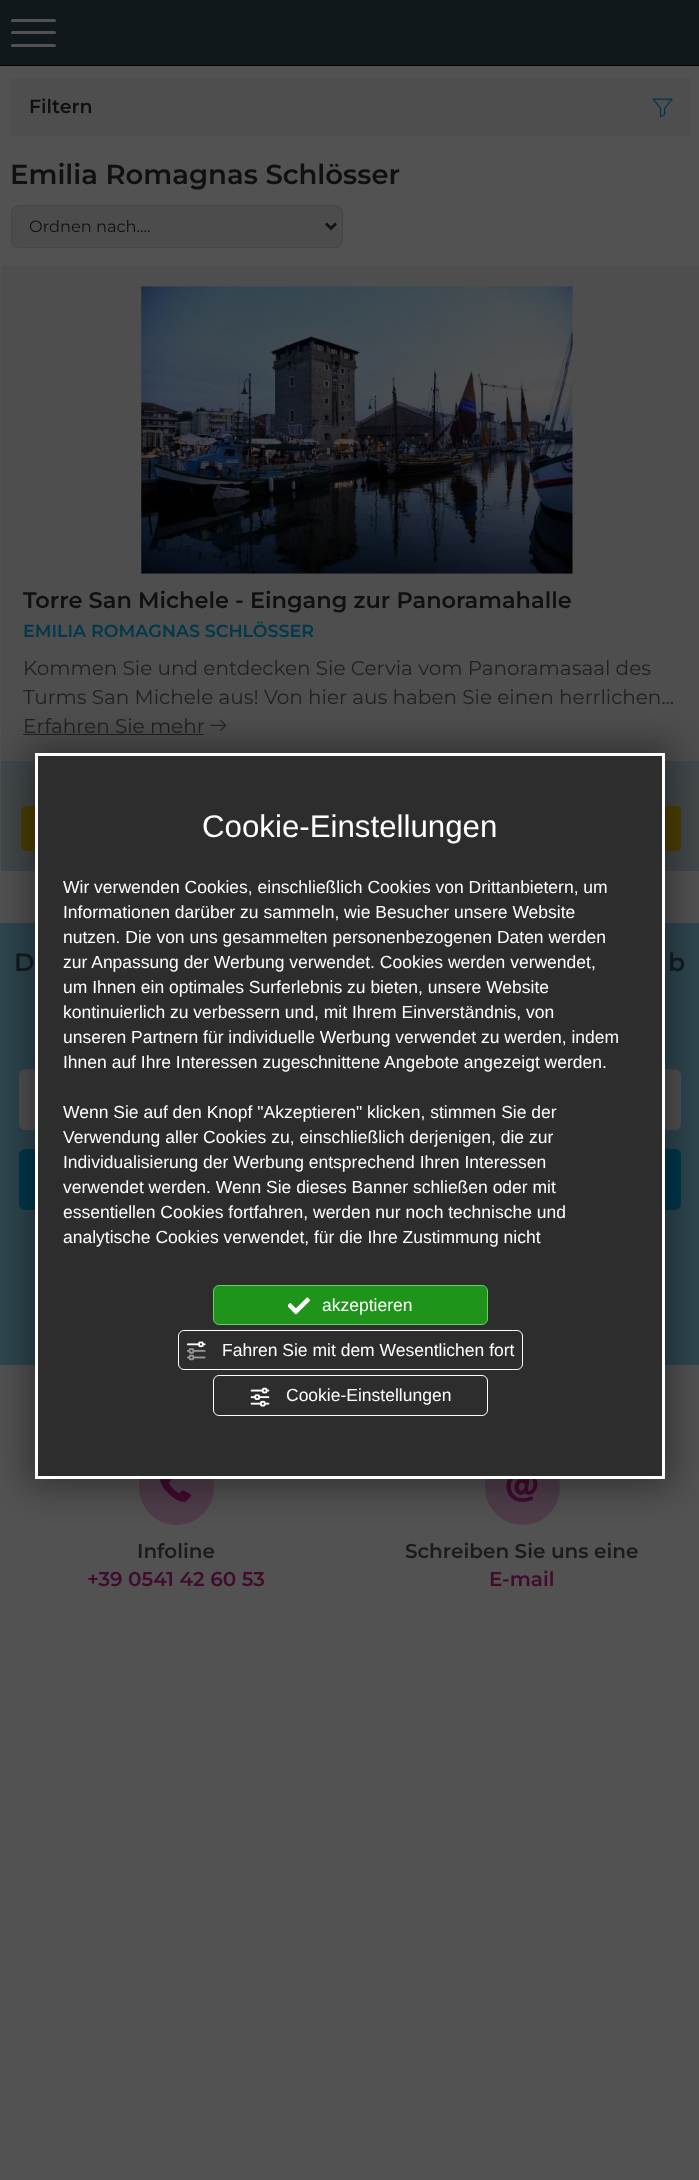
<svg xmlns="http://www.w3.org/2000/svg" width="699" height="2180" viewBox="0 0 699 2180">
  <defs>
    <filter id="blur1" x="-50%" y="-200%" width="200%" height="500%"><feGaussianBlur stdDeviation="18"/></filter>
  </defs>
  <rect width="100%" height="100%" fill="#525252"/>
  <rect x="0" y="0" width="699" height="65" fill="#10181c"/>
  <rect x="0" y="65" width="699" height="1" fill="#030303"/>
  <rect x="11" y="19" width="45" height="3" rx="1.5" fill="#525252"/>
  <rect x="11" y="31" width="45" height="3" rx="1.5" fill="#525252"/>
  <rect x="11" y="44" width="45" height="3" rx="1.5" fill="#525252"/>
  <rect x="10" y="78" width="681" height="58" fill="#4e4e4e"/>
  <text x="29" y="113" font-family="Montserrat" font-size="19" font-weight="600" fill="#101010">Filtern</text>
  <image x="652" y="98" width="21" height="20" href="img1.png"/>
  <text x="10" y="184" font-family="Montserrat" font-size="27.5" font-weight="600" fill="#101010">Emilia Romagnas Schlösser</text>
  <rect x="11.5" y="205.5" width="331" height="42" rx="7.5" fill="#4c4c4c" stroke="#454545"/>
  <path d="M326 223.5L331 228.5L336 223.5" fill="none" stroke="#101010" stroke-width="2.5"/>
  <text x="29" y="232" font-family="Montserrat" font-size="16.25" fill="#101010">Ordnen nach....</text>
  <rect x="1" y="761" width="698" height="110" fill="#43484a"/>
  <rect x="1" y="266" width="698" height="495" fill="#4e4e4e"/>
  <image x="141" y="286" width="432" height="288" href="img2.png"/>
  <text x="23" y="608" font-family="Montserrat" font-size="22.5" font-weight="600" fill="#101010">Torre San Michele - Eingang zur Panoramahalle</text>
  <text x="23" y="637" font-family="Montserrat" font-size="17.5" font-weight="600" fill="#00384d">EMILIA ROMAGNAS SCHLÖSSER</text>
  <text x="23" y="675" font-family="Montserrat" font-size="20" fill="#212121">Kommen Sie und entdecken Sie Cervia vom Panoramasaal des</text>
  <text x="23" y="704" font-family="Montserrat" font-size="20" fill="#212121">Turms San Michele aus! Von hier aus haben Sie einen herrlichen...</text>
  <text x="23" y="733" font-family="Montserrat" font-size="20" fill="#212121">Erfahren Sie mehr</text>
  <rect x="23" y="734" width="181" height="1" fill="#212121"/>
  <image x="210" y="719" width="17" height="12" href="img3.png"/>
  <rect x="21" y="806" width="660" height="45" rx="5" fill="#4d4003"/>
  <rect x="0" y="923" width="699" height="442" fill="#2e4650"/>
  <rect x="19" y="1069" width="662" height="61" rx="6" fill="#525252"/>
  <path d="M25 1070H675C678 1070 681 1073 681 1076V1075C681 1072 678 1069 675 1069H25C22 1069 19 1072 19 1075V1076C19 1073 22 1070 25 1070Z" fill="#000000" fill-opacity="0.07"/>
  <rect x="19" y="1149" width="662" height="61" rx="6" fill="#00384d"/>
  <circle cx="176.5" cy="1487.5" r="37.5" fill="#4e3d49"/>
  <image x="160" y="1479" width="32" height="23" href="img7.png"/>
  <circle cx="522.5" cy="1487.5" r="37.5" fill="#4e3d49"/>
  <image x="506" y="1479" width="32" height="23" href="img8.png"/>
  <rect x="26" y="744" width="648" height="744" fill="#000000" fill-opacity="0.38" filter="url(#blur1)"/>
  <rect x="36.5" y="754.5" width="627" height="723" fill="#2d2d2d" stroke="#ffffff" stroke-width="3"/>
  <text x="202" y="837" font-family="Liberation Sans" font-size="31.25" fill="#ffffff">Cookie-Einstellungen</text>
  <text x="63" y="893" font-family="Liberation Sans" font-size="17.5" fill="#ffffff">Wir verwenden Cookies, einschließlich Cookies von Drittanbietern, um</text>
  <text x="63" y="918" font-family="Liberation Sans" font-size="17.5" fill="#ffffff">Informationen darüber zu sammeln, wie Besucher unsere Website</text>
  <text x="63" y="943" font-family="Liberation Sans" font-size="17.5" fill="#ffffff">nutzen. Die von uns gesammelten personenbezogenen Daten werden</text>
  <text x="63" y="968" font-family="Liberation Sans" font-size="17.5" fill="#ffffff">zur Anpassung der Werbung verwendet. Cookies werden verwendet,</text>
  <text x="63" y="993" font-family="Liberation Sans" font-size="17.5" fill="#ffffff">um Ihnen ein optimales Surferlebnis zu bieten, unsere Website</text>
  <text x="63" y="1018" font-family="Liberation Sans" font-size="17.5" fill="#ffffff">kontinuierlich zu verbessern und, mit Ihrem Einverständnis, von</text>
  <text x="63" y="1043" font-family="Liberation Sans" font-size="17.5" fill="#ffffff">unseren Partnern für individuelle Werbung verwendet zu werden, indem</text>
  <text x="63" y="1068" font-family="Liberation Sans" font-size="17.5" fill="#ffffff">Ihnen auf Ihre Interessen zugeschnittene Angebote angezeigt werden.</text>
  <text x="63" y="1118" font-family="Liberation Sans" font-size="17.5" fill="#ffffff">Wenn Sie auf den Knopf "Akzeptieren" klicken, stimmen Sie der</text>
  <text x="63" y="1143" font-family="Liberation Sans" font-size="17.5" fill="#ffffff">Verwendung aller Cookies zu, einschließlich derjenigen, die zur</text>
  <text x="63" y="1168" font-family="Liberation Sans" font-size="17.5" fill="#ffffff">Individualisierung der Werbung entsprechend Ihren Interessen</text>
  <text x="63" y="1193" font-family="Liberation Sans" font-size="17.5" fill="#ffffff">verwendet werden. Wenn Sie dieses Banner schließen oder mit</text>
  <text x="63" y="1218" font-family="Liberation Sans" font-size="17.5" fill="#ffffff">essentiellen Cookies fortfahren, werden nur noch technische und</text>
  <text x="63" y="1243" font-family="Liberation Sans" font-size="17.5" fill="#ffffff">analytische Cookies verwendet, für die Ihre Zustimmung nicht</text>
  <rect x="213.5" y="1285.5" width="274" height="39" rx="5.5" fill="#1e941a" stroke="#6cca69"/>
  <image x="288" y="1297" width="22" height="18" href="img4.png"/>
  <text x="322" y="1311" font-family="Liberation Sans" font-size="17.5" fill="#ffffff">akzeptieren</text>
  <rect x="178.5" y="1330.5" width="344" height="39" rx="5.5" fill="none" stroke="#ffffff"/>
  <image x="186" y="1341" width="20" height="20" href="img5.png"/>
  <text x="222" y="1356" font-family="Liberation Sans" font-size="17.5" fill="#ffffff">Fahren Sie mit dem Wesentlichen fort</text>
  <rect x="213.5" y="1375.5" width="274" height="40" rx="5.5" fill="none" stroke="#ffffff"/>
  <image x="250" y="1387" width="20" height="20" href="img6.png"/>
  <text x="286" y="1401" font-family="Liberation Sans" font-size="17.5" fill="#ffffff">Cookie-Einstellungen</text>
  <text x="14" y="971" font-family="Montserrat" font-size="25" font-weight="600" fill="#10181c">D</text>
  <text x="668" y="971" font-family="Montserrat" font-size="25" font-weight="600" fill="#10181c">b</text>
  <text x="137" y="1558" font-family="Montserrat" font-size="20" font-weight="600" fill="#1b1b1b">Infoline</text>
  <text x="87" y="1586" font-family="Montserrat" font-size="20" font-weight="600" fill="#410a2e">+39 0541 42 60 53</text>
  <text x="405" y="1558" font-family="Montserrat" font-size="20" font-weight="600" fill="#1b1b1b">Schreiben Sie uns eine</text>
  <text x="489" y="1586" font-family="Montserrat" font-size="20" font-weight="600" fill="#410a2e">E-mail</text>
</svg>
